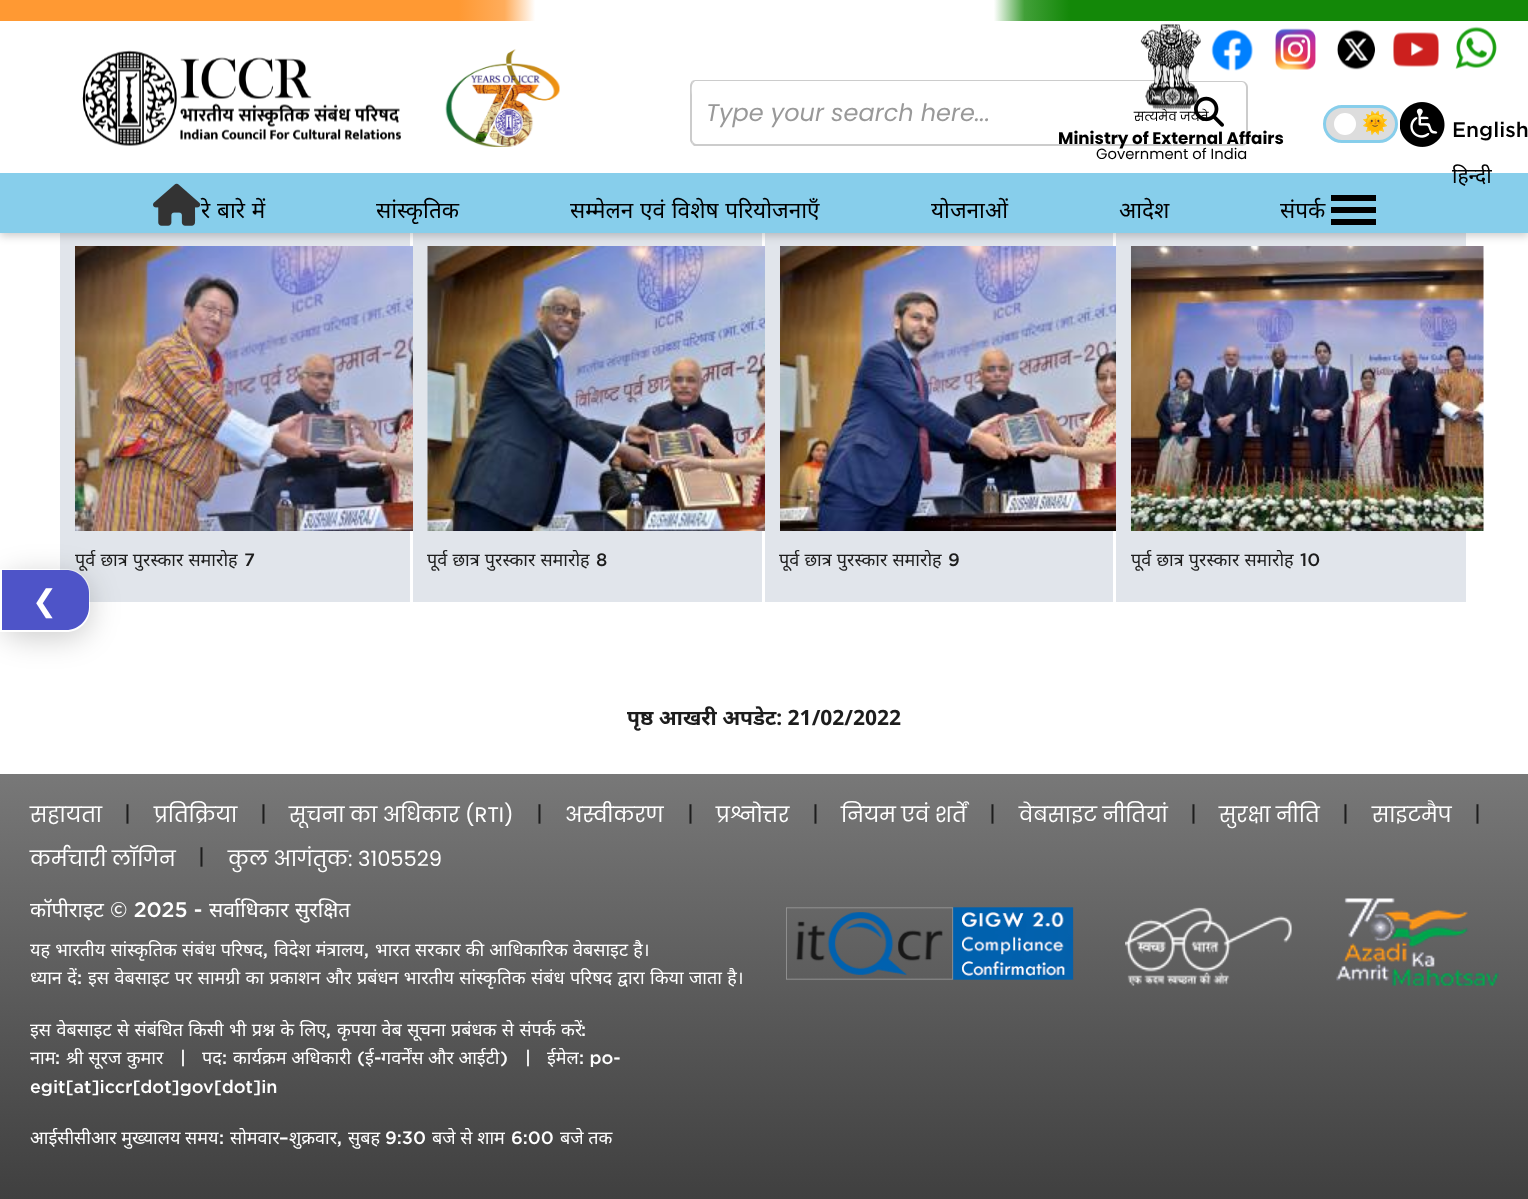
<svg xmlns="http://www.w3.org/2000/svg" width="1528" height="1199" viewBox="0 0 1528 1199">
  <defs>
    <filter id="blur1" x="-50%" y="-200%" width="200%" height="500%"><feGaussianBlur stdDeviation="4"/></filter>
    <linearGradient id="g1" gradientUnits="userSpaceOnUse" x1="0" y1="11" x2="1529" y2="10"><stop offset="0.3" stop-color="#ff9933"/><stop offset="0.33" stop-color="#ffad5c"/><stop offset="0.35" stop-color="#ffffff"/><stop offset="0.65" stop-color="#ffffff"/><stop offset="0.67" stop-color="#42a039"/><stop offset="0.7" stop-color="#138808"/></linearGradient>
    <clipPath id="clip1"><path d="M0 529H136V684H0ZM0 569H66C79.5 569 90 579.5 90 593V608C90 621.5 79.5 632 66 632H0Z" clip-rule="evenodd"/></clipPath>
    <filter id="blur2" x="-50%" y="-200%" width="200%" height="500%"><feGaussianBlur stdDeviation="15"/></filter>
    <linearGradient id="g2" gradientUnits="userSpaceOnUse" x1="764" y1="774" x2="764" y2="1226"><stop offset="0" stop-color="#787878"/><stop offset="1" stop-color="#3c3c3c"/></linearGradient>
  </defs>
  <rect width="100%" height="100%" fill="#ffffff"/>
  <rect x="60" y="233" width="350" height="369" fill="#e1e5eb"/>
  <image x="75" y="246" width="338" height="285" href="img12.png"/>
  <rect x="413" y="233" width="349" height="369" fill="#e1e5eb"/>
  <image x="427" y="246" width="338" height="285" href="img13.png"/>
  <rect x="765" y="233" width="348" height="369" fill="#e1e5eb"/>
  <image x="780" y="246" width="336" height="285" href="img14.png"/>
  <rect x="1116" y="233" width="350" height="369" fill="#e1e5eb"/>
  <image x="1131" y="246" width="353" height="285" href="img15.png"/>
  <rect x="0" y="3" width="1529" height="233" fill="#000000" fill-opacity="0.2" filter="url(#blur1)"/>
  <rect x="0" y="21" width="1528" height="152" fill="#ffffff"/>
  <rect x="0" y="0" width="1528" height="21" fill="url(#g1)"/>
  <image x="82" y="50" width="319" height="96" href="img1.png"/>
  <image x="445" y="49" width="115" height="98" href="img2.png"/>
  <image x="1211" y="29" width="42" height="42" href="img3.png"/>
  <image x="1275" y="28" width="41" height="42" href="img4.png"/>
  <image x="1337" y="29" width="38" height="41" href="img5.png"/>
  <image x="1393" y="32" width="46" height="35" href="img6.png"/>
  <image x="1455" y="26" width="42" height="43" href="img7.png"/>
  <path d="M696 80C695 80 693 80 692 81L693 83L695 81H1172V80Z" fill="#cccccc"/>
  <path d="M1173 146H694L692 144L693 142C694 143 695 144 696 144H1172Z" fill="#cccccc"/>
  <path d="M690 86V140C690 141 691 143 692 144L693 142L692 140V95C692 93 691 86 693 83L692 81C691 82 690 84 690 86Z" fill="#cccccc"/>
  <text x="706" y="121" font-family="Poppins" font-size="24" font-style="italic" fill="#999999">Type your search here...</text>
  <path d="M1173 81H1242C1245 81 1248 84 1248 87V140C1248 143 1245 146 1242 146H1173ZM1173 82H1242C1244 82 1246 85 1246 87V140C1246 142 1244 144 1242 144H1173Z" fill="#cccccc" fill-rule="evenodd"/>
  <image x="1194" y="96" width="30" height="31" href="img8.png"/>
  <image x="1140" y="24" width="61" height="86" href="img9.png"/>
  <text x="1134" y="121" font-family="Poppins" font-size="12.5" fill="#000000">सत्यमेव जयते</text>
  <text x="1058" y="144" font-family="Poppins" font-size="16.75" font-weight="bold" fill="#000000">Ministry of External Affairs</text>
  <text x="1096" y="159" font-family="Poppins" font-size="14.75" fill="#000000">Government of India</text>
  <rect x="1324.5" y="106.5" width="72" height="35" rx="17.5" fill="#dddddd" stroke="#87ceeb" stroke-width="3"/>
  <circle cx="1345" cy="124" r="11" fill="#ffffff"/>
  <text x="1362" y="130" font-family="Noto Color Emoji" font-size="21" fill="#ffa500">🌞</text>
  <image x="1400" y="102" width="45" height="45" href="img10.png"/>
  <text x="1452" y="137" font-family="Gotham" font-size="21" font-weight="500" fill="#000000">English</text>
  <rect x="0" y="173" width="1528" height="60" fill="#87ceeb"/>
  <text x="1452" y="183" font-family="Noto Sans" font-size="21" fill="#000000">हिन्दी</text>
  <rect x="1331" y="195" width="45" height="6" fill="#000000"/>
  <rect x="1331" y="207" width="45" height="6" fill="#000000"/>
  <rect x="1331" y="219" width="45" height="6" fill="#000000"/>
  <text x="201" y="218" word-spacing="1" font-family="Noto Sans" font-size="22.5" fill="#000000">रे बारे में</text>
  <image x="153" y="183" width="48" height="43" href="img11.png"/>
  <text x="376" y="218" font-family="Noto Sans" font-size="22.5" fill="#000000">सांस्कृतिक</text>
  <text x="570" y="218" word-spacing="1" font-family="Noto Sans" font-size="22.5" fill="#000000">सम्मेलन एवं विशेष परियोजनाएँ</text>
  <text x="931" y="218" font-family="Noto Sans" font-size="22.5" fill="#000000">योजनाओं</text>
  <text x="1119" y="218" font-family="Noto Sans" font-size="22.5" fill="#000000">आदेश</text>
  <text x="1280" y="218" word-spacing="1" font-family="Noto Sans" font-size="22.5" fill="#000000">संपर्क</text>
  <g clip-path="url(#clip1)">
    <rect x="0" y="575" width="90" height="63" rx="24" fill="#000000" fill-opacity="0.2" filter="url(#blur2)"/>
  </g>
  <text x="75" y="566" word-spacing="0.5" font-family="Noto Sans" font-size="18" fill="#1d1d1d">पूर्व छात्र पुरस्कार समारोह</text>
  <path d="M0 569H66C79.5 569 90 579.5 90 593V608C90 621.5 79.5 632 66 632H0Z" fill="#ffffff" fill-opacity="0.15"/>
  <path d="M1 570H66C78.5 570 89 580.5 89 593V608C89 620.5 78.5 631 66 631H1Z" fill="none" stroke="#ffffff" stroke-opacity="0.18" stroke-width="2"/>
  <path d="M2 570H66C78.5 570 89 580.5 89 593V607C89 619.5 78.5 630 66 630H2Z" fill="#4e54c8"/>
  <text x="32" y="611" font-family="DejaVu Sans" font-size="30" fill="#ffffff">❮</text>
  <text x="244" y="566" font-family="Gotham" font-size="18" font-weight="500" fill="#1d1d1d">7</text>
  <text x="427" y="566" word-spacing="0.5" font-family="Noto Sans" font-size="18" fill="#1d1d1d">पूर्व छात्र पुरस्कार समारोह</text>
  <text x="596" y="566" font-family="Gotham" font-size="18" font-weight="500" fill="#1d1d1d">8</text>
  <text x="779" y="566" word-spacing="0.5" font-family="Noto Sans" font-size="18" fill="#1d1d1d">पूर्व छात्र पुरस्कार समारोह</text>
  <text x="948" y="566" font-family="Gotham" font-size="18" font-weight="500" fill="#1d1d1d">9</text>
  <text x="1131" y="566" word-spacing="0.5" font-family="Noto Sans" font-size="18" fill="#1d1d1d">पूर्व छात्र पुरस्कार समारोह</text>
  <text x="1300" y="566" font-family="Gotham" font-size="18" font-weight="500" fill="#1d1d1d">10</text>
  <text x="627" y="725" font-family="Noto Sans" font-size="21" font-weight="bold" fill="#1d1d1d">पृष्ठ आखरी अपडेट: 21/02/2022</text>
  <rect x="0" y="774" width="1528" height="425" fill="url(#g2)"/>
  <text x="30" y="822" font-family="Poppins" font-size="21" fill="#ffffff">सहायता</text>
  <text x="124" y="821" font-family="Gotham" font-size="21" font-weight="500" fill="#1d1d1d">|</text>
  <text x="154" y="822" font-family="Poppins" font-size="21" fill="#ffffff">प्रतिक्रिया</text>
  <text x="260" y="821" font-family="Gotham" font-size="21" font-weight="500" fill="#1d1d1d">|</text>
  <text x="289" y="822" font-family="Poppins" font-size="21" fill="#ffffff">सूचना का अधिकार (RTI)</text>
  <text x="536" y="821" font-family="Gotham" font-size="21" font-weight="500" fill="#1d1d1d">|</text>
  <text x="565" y="822" font-family="Poppins" font-size="21" fill="#ffffff">अस्वीकरण</text>
  <text x="687" y="821" font-family="Gotham" font-size="21" font-weight="500" fill="#1d1d1d">|</text>
  <text x="716" y="822" font-family="Poppins" font-size="21" fill="#ffffff">प्रश्नोत्तर</text>
  <text x="812" y="821" font-family="Gotham" font-size="21" font-weight="500" fill="#1d1d1d">|</text>
  <text x="841" y="822" font-family="Poppins" font-size="21" fill="#ffffff">नियम एवं शर्तें</text>
  <text x="989" y="821" font-family="Gotham" font-size="21" font-weight="500" fill="#1d1d1d">|</text>
  <text x="1019" y="822" font-family="Poppins" font-size="21" fill="#ffffff">वेबसाइट नीतियां</text>
  <text x="1190" y="821" font-family="Gotham" font-size="21" font-weight="500" fill="#1d1d1d">|</text>
  <text x="1219" y="822" font-family="Poppins" font-size="21" fill="#ffffff">सुरक्षा नीति</text>
  <text x="1342" y="821" font-family="Gotham" font-size="21" font-weight="500" fill="#1d1d1d">|</text>
  <text x="1372" y="822" font-family="Poppins" font-size="21" fill="#ffffff">साइटमैप</text>
  <text x="1474" y="821" font-family="Gotham" font-size="21" font-weight="500" fill="#1d1d1d">|</text>
  <text x="30" y="866" font-family="Poppins" font-size="21" fill="#ffffff">कर्मचारी लॉगिन</text>
  <text x="198" y="864" font-family="Gotham" font-size="21" font-weight="500" fill="#1d1d1d">|</text>
  <text x="228" y="866" font-family="Poppins" font-size="21" fill="#ffffff">कुल आगंतुक: 3105529</text>
  <text x="30" y="917" font-family="Noto Sans" font-size="21" fill="#ffffff">कॉपीराइट</text>
  <text x="110" y="917" font-family="Gotham" font-size="21" font-weight="500" fill="#ffffff">© 2025 -</text>
  <text x="209" y="917" font-family="Noto Sans" font-size="21" fill="#ffffff">सर्वाधिकार</text>
  <text x="295" y="917" font-family="Noto Sans" font-size="21" fill="#ffffff">सुरक्षित</text>
  <text x="30" y="956" word-spacing="0.5" font-family="Noto Sans" font-size="18" fill="#ffffff">यह भारतीय सांस्कृतिक संबंध परिषद</text>
  <text x="263" y="956" font-family="Gotham" font-size="18" font-weight="500" fill="#ffffff">,</text>
  <text x="274" y="956" word-spacing="0.5" font-family="Noto Sans" font-size="18" fill="#ffffff">विदेश मंत्रालय</text>
  <text x="364" y="956" font-family="Gotham" font-size="18" font-weight="500" fill="#ffffff">,</text>
  <text x="375" y="956" word-spacing="0.5" font-family="Noto Sans" font-size="18" fill="#ffffff">भारत सरकार की आधिकारिक वेबसाइट है।</text>
  <text x="30" y="984" word-spacing="0.7" font-family="Noto Sans" font-size="18" fill="#ffffff">ध्यान दें</text>
  <text x="77" y="984" font-family="Gotham" font-size="18" font-weight="500" fill="#ffffff">:</text>
  <text x="88" y="984" word-spacing="0.7" font-family="Noto Sans" font-size="18" fill="#ffffff">इस वेबसाइट पर सामग्री का प्रकाशन और प्रबंधन भारतीय सांस्कृतिक संबंध परिषद द्वारा किया जाता है।</text>
  <text x="30" y="1036" word-spacing="0.75" font-family="Noto Sans" font-size="18" fill="#ffffff">इस वेबसाइट से संबंधित किसी भी प्रश्न के लिए</text>
  <text x="326" y="1036" font-family="Gotham" font-size="18" font-weight="500" fill="#ffffff">,</text>
  <text x="337" y="1036" word-spacing="0.75" font-family="Noto Sans" font-size="18" fill="#ffffff">कृपया वेब सूचना प्रबंधक से संपर्क करें</text>
  <text x="581" y="1036" font-family="Gotham" font-size="18" font-weight="500" fill="#ffffff">:</text>
  <text x="66" y="1064" word-spacing="0.5" font-family="Noto Sans" font-size="18" fill="#ffffff">श्री सूरज कुमार</text>
  <text x="180" y="1064" font-family="Gotham" font-size="18" font-weight="500" fill="#ffffff">|</text>
  <text x="233" y="1064" font-family="Noto Sans" font-size="18" fill="#ffffff">कार्यक्रम अधिकारी</text>
  <text x="357" y="1064" font-family="Gotham" font-size="18" font-weight="500" fill="#ffffff">(</text>
  <text x="365" y="1064" font-family="Noto Sans" font-size="18" fill="#ffffff">ई</text>
  <text x="381" y="1064" font-family="Noto Sans" font-size="18" fill="#ffffff">गवर्नेंस और आईटी</text>
  <text x="525" y="1064" font-family="Gotham" font-size="18" font-weight="500" fill="#ffffff">|</text>
  <text x="547" y="1064" font-family="Noto Sans" font-size="18" fill="#ffffff">ईमेल</text>
  <text x="30" y="1064" font-family="Noto Sans" font-size="18" fill="#ffffff">नाम</text>
  <text x="55" y="1064" font-family="Gotham" font-size="18" font-weight="500" fill="#ffffff">:</text>
  <text x="202" y="1064" font-family="Noto Sans" font-size="18" fill="#ffffff">पद</text>
  <text x="222" y="1064" font-family="Gotham" font-size="18" font-weight="500" fill="#ffffff">:</text>
  <text x="374" y="1064" font-family="Gotham" font-size="18" font-weight="500" fill="#ffffff">-</text>
  <text x="500" y="1064" font-family="Gotham" font-size="18" font-weight="500" fill="#ffffff">)</text>
  <text x="579" y="1064" font-family="Gotham" font-size="18" font-weight="500" fill="#ffffff">: po-</text>
  <text x="30" y="1093" font-family="Gotham" font-size="18" font-weight="500" fill="#ffffff">egit[at]iccr[dot]gov[dot]in</text>
  <text x="30" y="1144" font-family="Noto Sans" font-size="18" fill="#ffffff">आईसीसीआर मुख्यालय समय</text>
  <text x="219" y="1144" font-family="Gotham" font-size="18" font-weight="500" fill="#ffffff">:</text>
  <text x="230" y="1144" font-family="Noto Sans" font-size="18" fill="#ffffff">सोमवार</text>
  <text x="279" y="1144" font-family="Gotham" font-size="18" font-weight="500" fill="#ffffff">–</text>
  <text x="289" y="1144" font-family="Noto Sans" font-size="18" fill="#ffffff">शुक्रवार</text>
  <text x="337" y="1144" font-family="Gotham" font-size="18" font-weight="500" fill="#ffffff">,</text>
  <text x="348" y="1144" font-family="Noto Sans" font-size="18" fill="#ffffff">सुबह</text>
  <text x="385" y="1144" font-family="Gotham" font-size="18" font-weight="500" fill="#ffffff">9:30</text>
  <text x="432" y="1144" font-family="Noto Sans" font-size="18" fill="#ffffff">बजे से शाम</text>
  <text x="511" y="1144" font-family="Gotham" font-size="18" font-weight="500" fill="#ffffff">6:00</text>
  <text x="560" y="1144" font-family="Noto Sans" font-size="18" fill="#ffffff">बजे तक</text>
  <image x="786" y="907" width="288" height="73" href="img16.png"/>
  <image x="1125" y="907" width="167" height="79" href="img17.png"/>
  <image x="1336" y="898" width="163" height="88" href="img18.png"/>
</svg>
